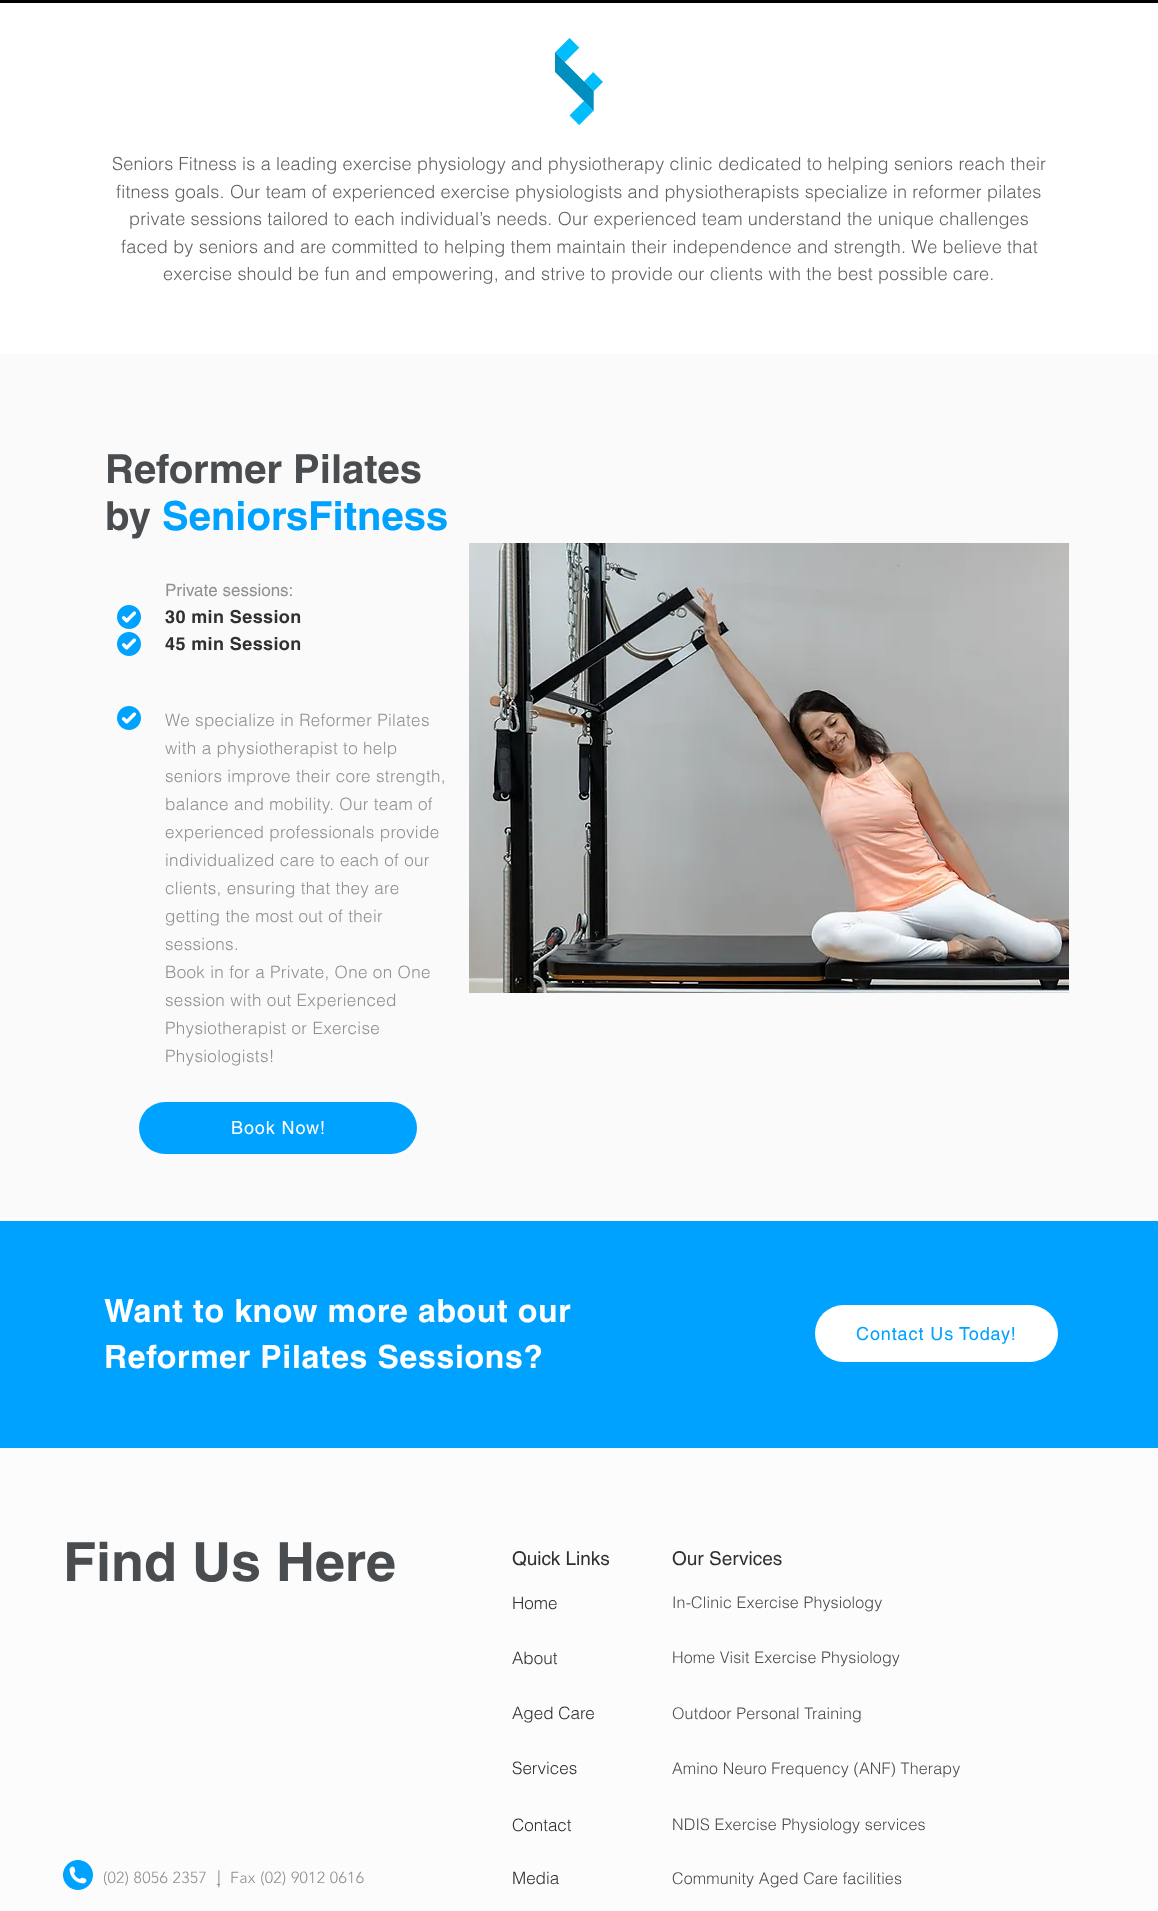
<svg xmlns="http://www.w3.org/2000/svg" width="1158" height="1911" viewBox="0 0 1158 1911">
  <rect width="100%" height="100%" fill="#ffffff"/>
  <rect x="0" y="0" width="1158" height="3" fill="#000000"/>
  <image x="555" y="38" width="48" height="87" href="img1.png"/>
  <text x="112" y="170" font-family="helvetica" font-size="18" font-weight="300" letter-spacing="0.19" fill="#606060">Seniors Fitness is a leading exercise physiology and physiotherapy clinic dedicated to helping seniors reach their</text>
  <text x="116" y="198" font-family="helvetica" font-size="18" font-weight="300" letter-spacing="0.19" fill="#606060">fitness goals. Our team of experienced exercise physiologists and physiotherapists specialize in reformer pilates</text>
  <text x="129" y="225" font-family="helvetica" font-size="18" font-weight="300" letter-spacing="0.19" fill="#606060">private sessions tailored to each individual’s needs. Our experienced team understand the unique challenges</text>
  <text x="121" y="253" font-family="helvetica" font-size="18" font-weight="300" letter-spacing="0.19" fill="#606060">faced by seniors and are committed to helping them maintain their independence and strength. We believe that</text>
  <text x="163" y="280" font-family="helvetica" font-size="18" font-weight="300" letter-spacing="0.19" fill="#606060">exercise should be fun and empowering, and strive to provide our clients with the best possible care.</text>
  <rect x="0" y="354" width="1158" height="864" fill="#fafafa"/>
  <text x="105" y="483" font-family="helvetica" font-size="40" font-weight="bold" fill="#494d50">Reformer Pilates</text>
  <text x="105" y="530" font-family="helvetica" font-size="40" font-weight="bold" fill="#494d50">by</text>
  <text x="162" y="530" font-family="helvetica" font-size="40" font-weight="bold" fill="#00a2ff">SeniorsFitness</text>
  <image x="117" y="605" width="24" height="24" href="img2.png"/>
  <image x="117" y="632" width="24" height="24" href="img2.png"/>
  <text x="165" y="596" font-family="helvetica" font-size="17" fill="#909090">Private sessions:</text>
  <text x="165" y="623" font-family="helvetica" font-size="18" font-weight="bold" letter-spacing="0.4" fill="#303030">30 min Session</text>
  <text x="165" y="650" font-family="helvetica" font-size="18" font-weight="bold" letter-spacing="0.4" fill="#303030">45 min Session</text>
  <image x="469" y="543" width="600" height="450" href="img3.png"/>
  <image x="117" y="706" width="24" height="24" href="img2.png"/>
  <text x="165" y="726" font-family="helvetica" font-size="17" font-weight="300" letter-spacing="0.35" fill="#909090">We specialize in Reformer Pilates</text>
  <text x="165" y="754" font-family="helvetica" font-size="17" font-weight="300" letter-spacing="0.35" fill="#909090">with a physiotherapist to help</text>
  <text x="165" y="782" font-family="helvetica" font-size="17" font-weight="300" letter-spacing="0.35" fill="#909090">seniors improve their core strength,</text>
  <text x="165" y="810" font-family="helvetica" font-size="17" font-weight="300" letter-spacing="0.35" fill="#909090">balance and mobility. Our team of</text>
  <text x="165" y="838" font-family="helvetica" font-size="17" font-weight="300" letter-spacing="0.35" fill="#909090">experienced professionals provide</text>
  <text x="165" y="866" font-family="helvetica" font-size="17" font-weight="300" letter-spacing="0.35" fill="#909090">individualized care to each of our</text>
  <text x="165" y="894" font-family="helvetica" font-size="17" font-weight="300" letter-spacing="0.35" fill="#909090">clients, ensuring that they are</text>
  <text x="165" y="922" font-family="helvetica" font-size="17" font-weight="300" letter-spacing="0.35" fill="#909090">getting the most out of their</text>
  <text x="165" y="950" font-family="helvetica" font-size="17" font-weight="300" letter-spacing="0.35" fill="#909090">sessions.</text>
  <text x="165" y="978" font-family="helvetica" font-size="17" font-weight="300" letter-spacing="0.35" fill="#909090">Book in for a Private, One on One</text>
  <text x="165" y="1006" font-family="helvetica" font-size="17" font-weight="300" letter-spacing="0.35" fill="#909090">session with out Experienced</text>
  <text x="165" y="1034" font-family="helvetica" font-size="17" font-weight="300" letter-spacing="0.35" fill="#909090">Physiotherapist or Exercise</text>
  <text x="165" y="1062" font-family="helvetica" font-size="17" font-weight="300" letter-spacing="0.35" fill="#909090">Physiologists!</text>
  <rect x="139" y="1102" width="278" height="52" rx="26" fill="#00a2ff"/>
  <text x="231" y="1134" font-family="helvetica" font-size="18" letter-spacing="0.9" fill="#ffffff">Book Now!</text>
  <rect x="0" y="1221" width="1158" height="227" fill="#00a2ff"/>
  <text x="104" y="1322" font-family="helvetica" font-size="32" font-weight="bold" letter-spacing="0.65" fill="#ffffff">Want to know more about our</text>
  <text x="104" y="1368" font-family="helvetica" font-size="32" font-weight="bold" letter-spacing="0.65" fill="#ffffff">Reformer Pilates Sessions?</text>
  <rect x="815" y="1305" width="243" height="57" rx="28.5" fill="#ffffff"/>
  <text x="856" y="1340" font-family="helvetica" font-size="18" letter-spacing="0.9" fill="#00a2ff">Contact Us Today!</text>
  <rect x="0" y="1448" width="1158" height="463" fill="#fcfcfc"/>
  <text x="63" y="1581" font-family="helvetica" font-size="54" font-weight="bold" fill="#494d50">Find Us Here</text>
  <image x="63" y="1860" width="30" height="30" href="img4.png"/>
  <text x="103" y="1883" font-family="'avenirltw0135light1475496'" font-size="16" font-weight="300" letter-spacing="0.3" fill="#909090">(02) 8056 2357</text>
  <rect x="217" y="1884" width="3" height="1" fill="#909090"/>
  <text x="217" y="1883" font-family="helvetica" font-size="17" font-weight="300" fill="#909090">|</text>
  <text x="230" y="1883" font-family="'avenirltw0135light1475496'" font-size="16" font-weight="300" letter-spacing="0.3" fill="#909090">Fax (02) 9012 0616</text>
  <text x="512" y="1565" font-family="helvetica" font-size="19" fill="#303030">Quick Links</text>
  <text x="672" y="1565" font-family="helvetica" font-size="19" fill="#303030">Our Services</text>
  <text x="512" y="1609" font-family="helvetica" font-size="17" font-weight="300" fill="#303030">Home</text>
  <text x="672" y="1608" font-family="helvetica" font-size="16" font-weight="300" letter-spacing="0.15" fill="#494d50">In-Clinic Exercise Physiology</text>
  <text x="512" y="1664" font-family="helvetica" font-size="17" font-weight="300" fill="#303030">About</text>
  <text x="672" y="1663" font-family="helvetica" font-size="16" font-weight="300" letter-spacing="0.15" fill="#494d50">Home Visit Exercise Physiology</text>
  <text x="512" y="1719" font-family="helvetica" font-size="17" font-weight="300" fill="#303030">Aged Care</text>
  <text x="672" y="1719" font-family="helvetica" font-size="16" font-weight="300" letter-spacing="0.15" fill="#494d50">Outdoor Personal Training</text>
  <text x="512" y="1774" font-family="helvetica" font-size="17" font-weight="300" fill="#303030">Services</text>
  <text x="672" y="1774" font-family="helvetica" font-size="16" font-weight="300" letter-spacing="0.15" fill="#494d50">Amino Neuro Frequency (ANF) Therapy</text>
  <text x="512" y="1831" font-family="helvetica" font-size="17" font-weight="300" fill="#303030">Contact</text>
  <text x="672" y="1830" font-family="helvetica" font-size="16" font-weight="300" letter-spacing="0.15" fill="#494d50">NDIS Exercise Physiology services</text>
  <text x="512" y="1884" font-family="helvetica" font-size="17" font-weight="300" fill="#303030">Media</text>
  <text x="672" y="1884" font-family="helvetica" font-size="16" font-weight="300" letter-spacing="0.15" fill="#494d50">Community Aged Care facilities</text>
</svg>
